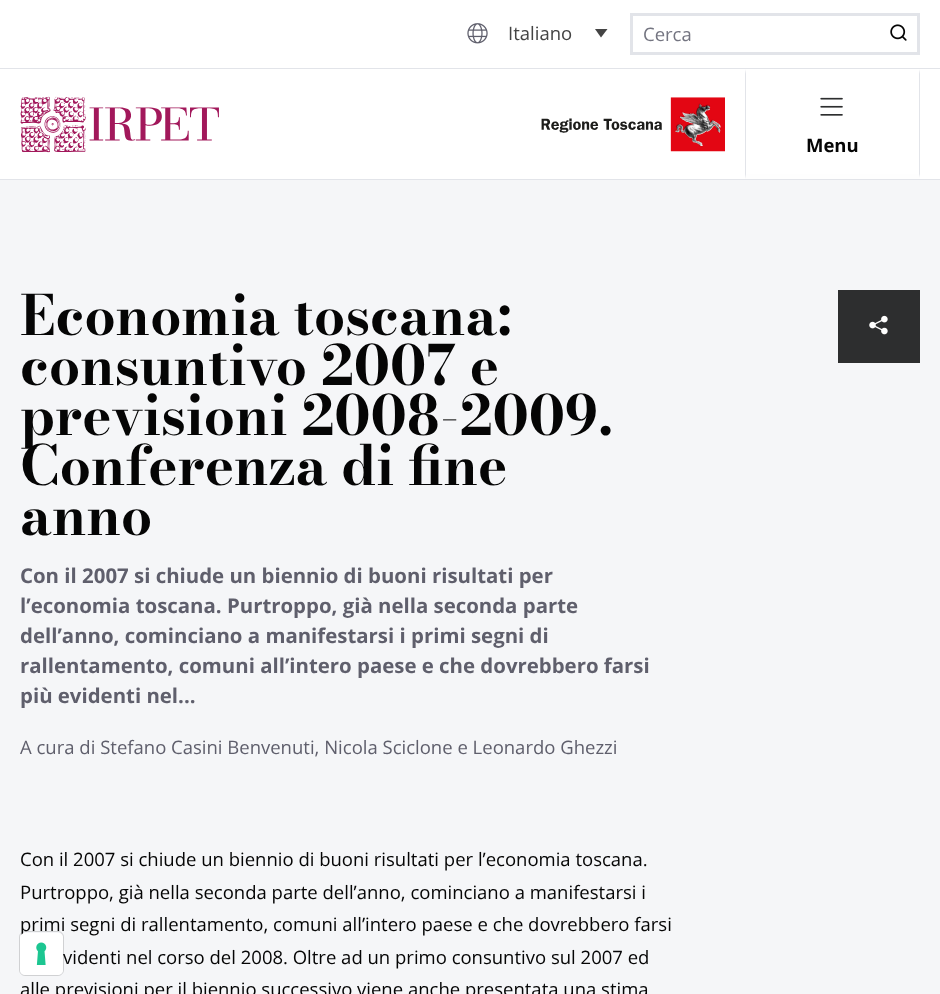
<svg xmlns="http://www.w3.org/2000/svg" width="940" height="994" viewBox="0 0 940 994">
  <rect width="100%" height="100%" fill="#ffffff"/>
  <image x="467" y="23" width="21" height="21" href="img1.png"/>
  <text x="508" y="40" font-family="Open Sans" font-size="18.5" fill="#444444">Italiano</text>
  <path d="M595 29H607.5L601 37.5Z" fill="#444444"/>
  <rect x="631.5" y="14.5" width="287" height="39" fill="none" stroke="#e2e4e9" stroke-width="3"/>
  <text x="643" y="41" font-family="Open Sans" font-size="18.5" fill="#747581">Cerca</text>
  <image x="890" y="24" width="17" height="17" href="img2.png"/>
  <rect x="0" y="68" width="940" height="1" fill="#e2e4e9"/>
  <rect x="0" y="179" width="940" height="1" fill="#e2e4e9"/>
  <image x="20" y="96" width="199" height="57" href="img3.png"/>
  <image x="541" y="97" width="184" height="55" href="img4.png"/>
  <path d="M920 69V179L919 174V74Z" fill="#e2e4e9"/>
  <path d="M920 179H745L746 174H919Z" fill="#fefefe"/>
  <path d="M745 179V69L746 74V174Z" fill="#e2e4e9"/>
  <image x="820" y="97" width="23" height="19" href="img5.png"/>
  <text x="806" y="152" font-family="Open Sans" font-size="18.5" font-weight="bold" fill="#050505">Menu</text>
  <rect x="0" y="180" width="940" height="814" fill="#f5f6f8"/>
  <text x="20" y="335" font-family="Bodoni Moda" font-size="55" font-weight="bold" fill="#050505">Economia toscana:</text>
  <text x="20" y="385" font-family="Bodoni Moda" font-size="55" font-weight="bold" fill="#050505">consuntivo 2007 e</text>
  <text x="20" y="435" font-family="Bodoni Moda" font-size="55" font-weight="bold" fill="#050505">previsioni 2008-2009.</text>
  <text x="20" y="485" font-family="Bodoni Moda" font-size="55" font-weight="bold" fill="#050505">Conferenza di fine</text>
  <text x="20" y="535" font-family="Bodoni Moda" font-size="55" font-weight="bold" fill="#050505">anno</text>
  <text x="20" y="583" font-family="Open Sans" font-size="20.4" font-weight="bold" fill="#5f5f6c">Con il 2007 si chiude un biennio di buoni risultati per</text>
  <text x="20" y="613" font-family="Open Sans" font-size="20.4" font-weight="bold" fill="#5f5f6c">l’economia toscana. Purtroppo, già nella seconda parte</text>
  <text x="20" y="643" font-family="Open Sans" font-size="20.4" font-weight="bold" fill="#5f5f6c">dell’anno, cominciano a manifestarsi i primi segni di</text>
  <text x="20" y="673" font-family="Open Sans" font-size="20.4" font-weight="bold" fill="#5f5f6c">rallentamento, comuni all’intero paese e che dovrebbero farsi</text>
  <text x="20" y="703" font-family="Open Sans" font-size="20.4" font-weight="bold" fill="#5f5f6c">più evidenti nel...</text>
  <text x="20" y="754" font-family="Open Sans" font-size="18.5" fill="#5f5f6c">A cura di Stefano Casini Benvenuti, Nicola Sciclone e Leonardo Ghezzi</text>
  <rect x="838" y="290" width="82" height="73" fill="#2d2e2f"/>
  <image x="869" y="315" width="19" height="20" href="img6.png"/>
  <text x="20" y="866" font-family="Open Sans" font-size="18.5" fill="#050505">Con il 2007 si chiude un biennio di buoni risultati per l’economia toscana.</text>
  <text x="20" y="899" font-family="Open Sans" font-size="18.5" fill="#050505">Purtroppo, già nella seconda parte dell’anno, cominciano a manifestarsi i</text>
  <text x="20" y="931" font-family="Open Sans" font-size="18.5" fill="#050505">primi segni di rallentamento, comuni all’intero paese e che dovrebbero farsi</text>
  <text x="63" y="964" font-family="Open Sans" font-size="18.5" fill="#050505">videnti nel corso del 2008. Oltre ad un primo consuntivo sul 2007 ed</text>
  <text x="20" y="996" font-family="Open Sans" font-size="18.5" fill="#050505">alle previsioni per il biennio successivo viene anche presentata una stima</text>
  <rect x="19.5" y="931.5" width="44" height="44" rx="5.5" fill="none" stroke="#000000" stroke-opacity="0.15"/>
  <rect x="20" y="933" width="43" height="42" rx="5" fill="#ffffff"/>
  <image x="36" y="942" width="11" height="23" href="img7.png"/>
</svg>
